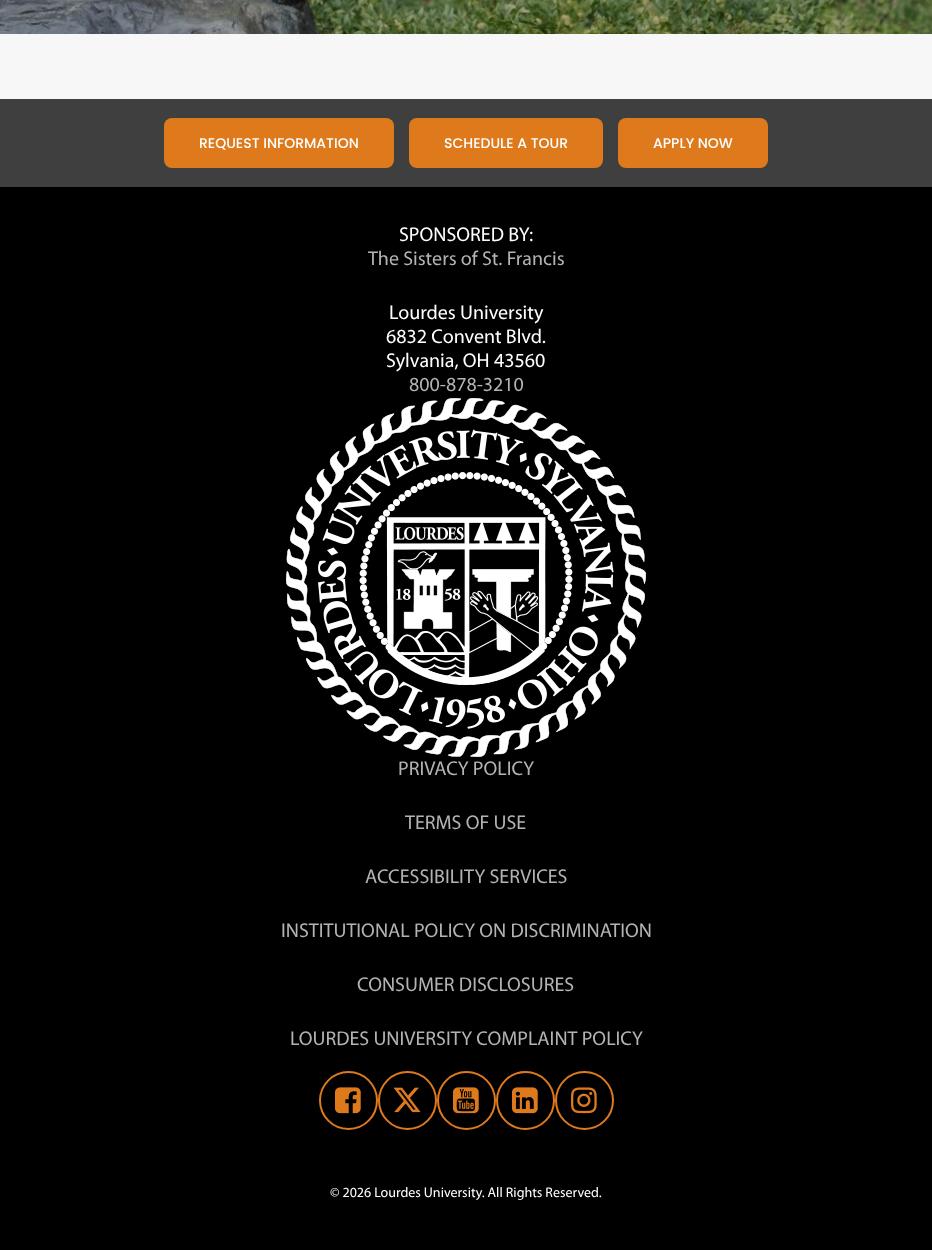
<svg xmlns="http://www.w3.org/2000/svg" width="932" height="1250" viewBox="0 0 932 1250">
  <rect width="100%" height="100%" fill="#f7f7f7"/>
  <image x="0" y="0" width="932" height="34" href="img1.png"/>
  <rect x="0" y="99" width="932" height="88" fill="#3f3f3f"/>
  <rect x="164" y="118" width="230" height="50" rx="8" fill="#df7a1c"/>
  <text x="199" y="148" font-family="Poppins" font-size="14" font-weight="500" fill="#ffffff">REQUEST INFORMATION</text>
  <rect x="409" y="118" width="194" height="50" rx="8" fill="#df7a1c"/>
  <text x="444" y="148" font-family="Poppins" font-size="14" font-weight="500" fill="#ffffff">SCHEDULE A TOUR</text>
  <rect x="618" y="118" width="150" height="50" rx="8" fill="#df7a1c"/>
  <text x="653" y="148" font-family="Poppins" font-size="14" font-weight="500" fill="#ffffff">APPLY NOW</text>
  <rect x="0" y="187" width="932" height="948" fill="#000000"/>
  <text x="399" y="241" font-family="Myriad" font-size="20" fill="#ffffff">SPONSORED BY:</text>
  <text x="368" y="265" font-family="Myriad" font-size="20" fill="#b3b3b3">The Sisters of St. Francis</text>
  <text x="389" y="319" font-family="Myriad" font-size="20" fill="#ffffff">Lourdes University</text>
  <text x="386" y="343" font-family="Myriad" font-size="20" fill="#ffffff">6832 Convent Blvd.</text>
  <text x="386" y="367" font-family="Myriad" font-size="20" fill="#ffffff">Sylvania, OH 43560</text>
  <text x="409" y="391" font-family="Myriad" font-size="20" fill="#b3b3b3">800-878-3210</text>
  <image x="286" y="398" width="360" height="359" href="img2.png"/>
  <text x="398" y="775" font-family="Myriad" font-size="20" fill="#b3b3b3">PRIVACY POLICY</text>
  <text x="405" y="829" font-family="Myriad" font-size="20" fill="#b3b3b3">TERMS OF USE</text>
  <text x="365" y="883" font-family="Myriad" font-size="20" fill="#b3b3b3">ACCESSIBILITY SERVICES</text>
  <text x="281" y="937" font-family="Myriad" font-size="20" fill="#b3b3b3">INSTITUTIONAL POLICY ON DISCRIMINATION</text>
  <text x="357" y="991" font-family="Myriad" font-size="20" fill="#b3b3b3">CONSUMER DISCLOSURES</text>
  <text x="290" y="1045" font-family="Myriad" font-size="20" fill="#b3b3b3">LOURDES UNIVERSITY COMPLAINT POLICY</text>
  <circle cx="348.5" cy="1100.5" r="28.5" fill="none" stroke="#df7a1c" stroke-width="2"/>
  <image x="335" y="1087" width="26" height="27" href="img3.png"/>
  <circle cx="407.5" cy="1100.5" r="28.5" fill="none" stroke="#df7a1c" stroke-width="2"/>
  <image x="393" y="1087" width="28" height="26" href="img4.png"/>
  <circle cx="466.5" cy="1100.5" r="28.5" fill="none" stroke="#df7a1c" stroke-width="2"/>
  <image x="453" y="1087" width="26" height="27" href="img5.png"/>
  <circle cx="525.5" cy="1100.5" r="28.5" fill="none" stroke="#df7a1c" stroke-width="2"/>
  <image x="512" y="1087" width="26" height="27" href="img6.png"/>
  <circle cx="584.5" cy="1100.5" r="28.5" fill="none" stroke="#df7a1c" stroke-width="2"/>
  <image x="571" y="1087" width="26" height="27" href="img7.png"/>
  <rect x="0" y="1135" width="932" height="115" fill="#000000"/>
  <text x="330" y="1197" font-family="Myriad" font-size="14" fill="#ffffff">© 2026 Lourdes University. All Rights Reserved.</text>
</svg>
